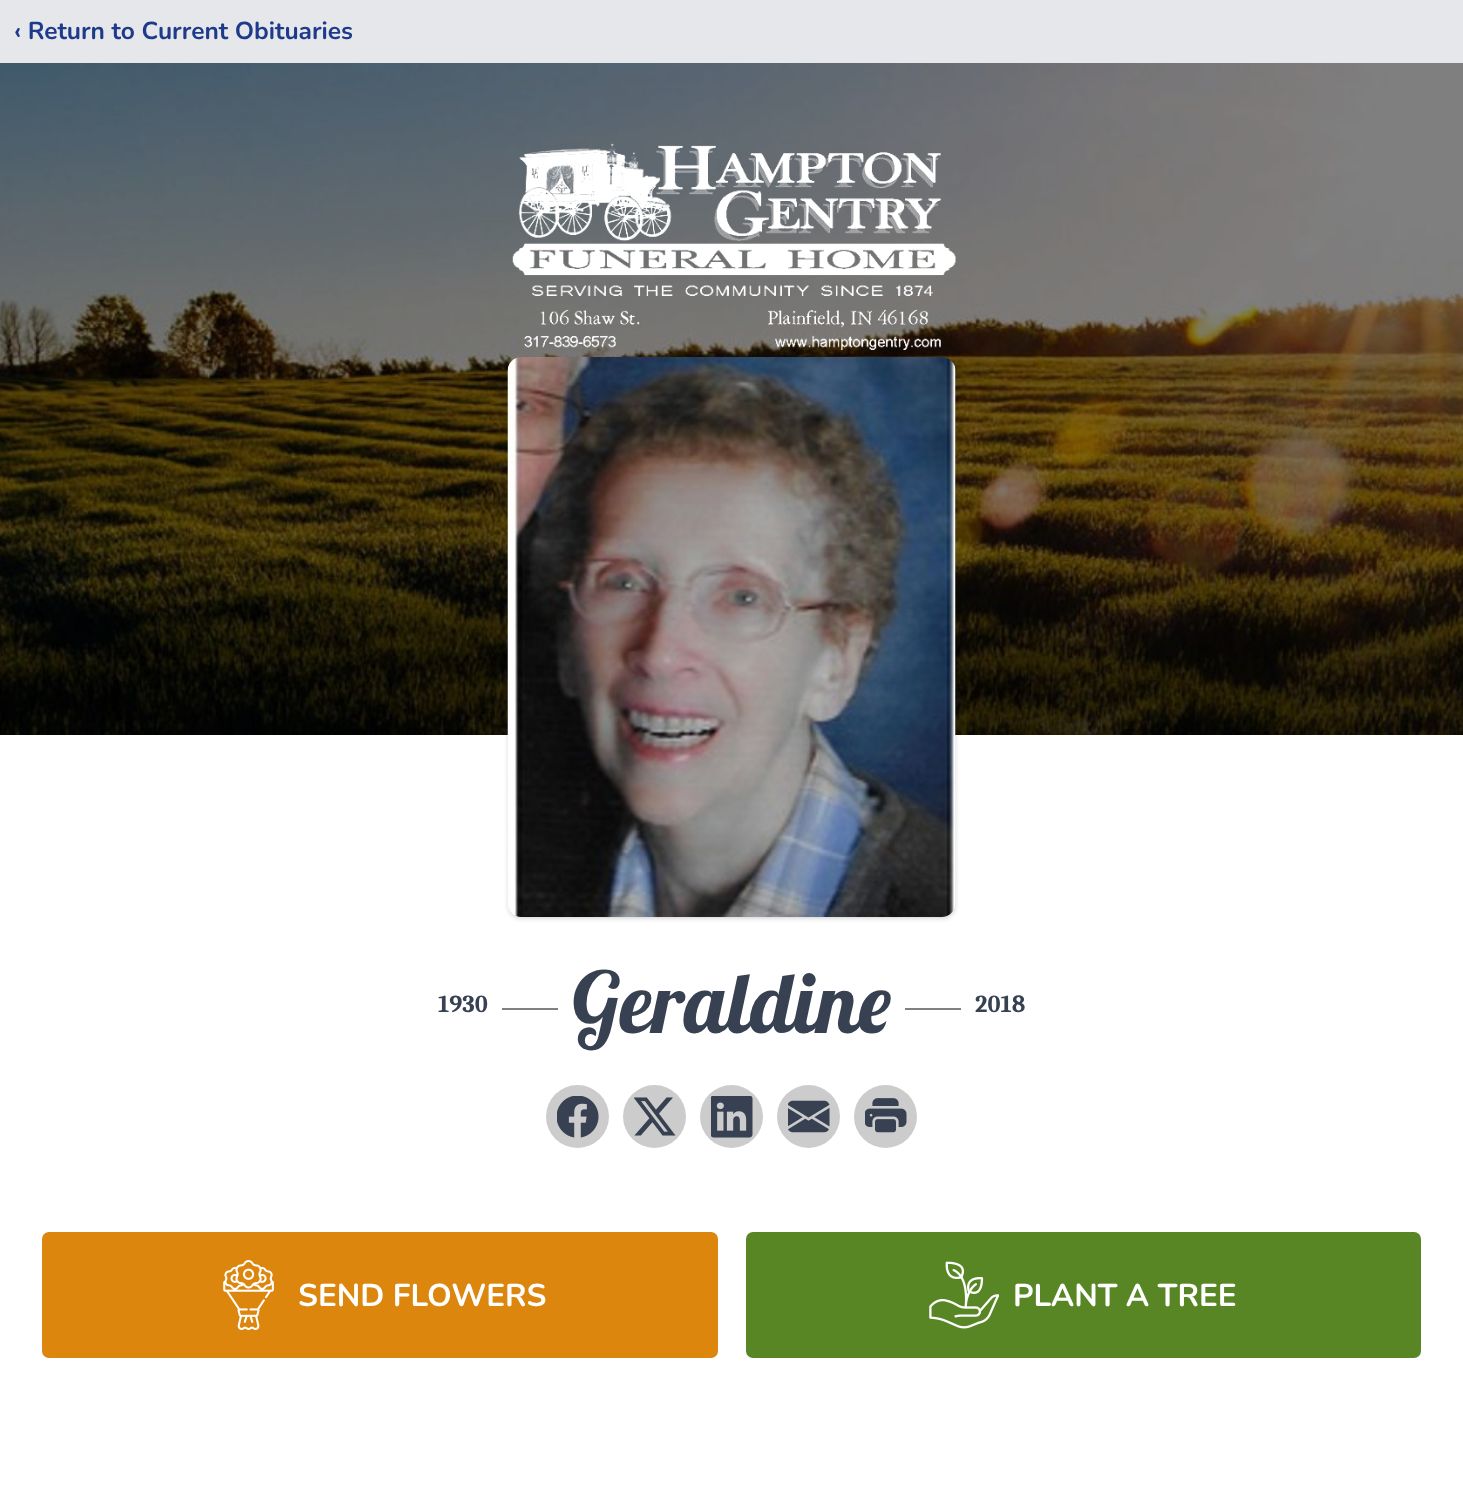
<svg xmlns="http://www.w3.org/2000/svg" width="1463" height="1507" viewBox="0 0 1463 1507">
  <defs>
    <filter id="blur1" x="-50%" y="-200%" width="200%" height="500%"><feGaussianBlur stdDeviation="2"/></filter>
    <filter id="blur2" x="-50%" y="-200%" width="200%" height="500%"><feGaussianBlur stdDeviation="2.5"/></filter>
  </defs>
  <rect width="100%" height="100%" fill="#ffffff"/>
  <rect x="0" y="0" width="1463" height="63" fill="#e5e7eb"/>
  <text x="14" y="39" font-family="Nunito" font-size="24.5" font-weight="bold" fill="#1e3a8a">‹ Return to Current Obituaries</text>
  <image x="0" y="63" width="1463" height="672" href="img1.png"/>
  <image x="512" y="143" width="444" height="208" href="img2.png"/>
  <rect x="509" y="361" width="445" height="556" rx="12" fill="#000000" fill-opacity="0.1" filter="url(#blur1)"/>
  <rect x="508" y="359" width="448" height="560" rx="14" fill="#000000" fill-opacity="0.1" filter="url(#blur2)"/>
  <image x="507" y="357" width="449" height="560" href="img3.png"/>
  <text x="438" y="1012" font-family="Caladea" font-size="24.5" font-weight="bold" fill="#374151">1930</text>
  <rect x="502" y="1008" width="56" height="2" fill="#808080"/>
  <text x="572" y="1033" font-family="Lobster" font-size="84" fill="#374151">Geraldine</text>
  <rect x="905" y="1008" width="56" height="2" fill="#808080"/>
  <text x="975" y="1012" font-family="Caladea" font-size="24.5" font-weight="bold" fill="#374151">2018</text>
  <circle cx="577.5" cy="1116.5" r="31.5" fill="#cccccc"/>
  <image x="557" y="1096" width="42" height="42" href="img4.png"/>
  <circle cx="654.5" cy="1116.5" r="31.5" fill="#cccccc"/>
  <image x="634" y="1097" width="42" height="39" href="img5.png"/>
  <circle cx="731.5" cy="1116.5" r="31.5" fill="#cccccc"/>
  <image x="711" y="1096" width="42" height="42" href="img6.png"/>
  <circle cx="808.5" cy="1116.5" r="31.5" fill="#cccccc"/>
  <image x="788" y="1100" width="42" height="33" href="img7.png"/>
  <circle cx="885.5" cy="1116.5" r="31.5" fill="#cccccc"/>
  <image x="865" y="1098" width="42" height="35" href="img8.png"/>
  <rect x="42" y="1232" width="676" height="126" rx="7" fill="#dc860d"/>
  <image x="223" y="1260" width="51" height="70" href="img9.png"/>
  <text x="298" y="1306" font-family="Nunito" font-size="31.5" font-weight="bold" fill="#ffffff">SEND FLOWERS</text>
  <rect x="746" y="1232" width="675" height="126" rx="7" fill="#588624"/>
  <image x="929" y="1261" width="70" height="68" href="img10.png"/>
  <text x="1013" y="1306" font-family="Nunito" font-size="31.5" font-weight="bold" fill="#ffffff">PLANT A TREE</text>
</svg>
